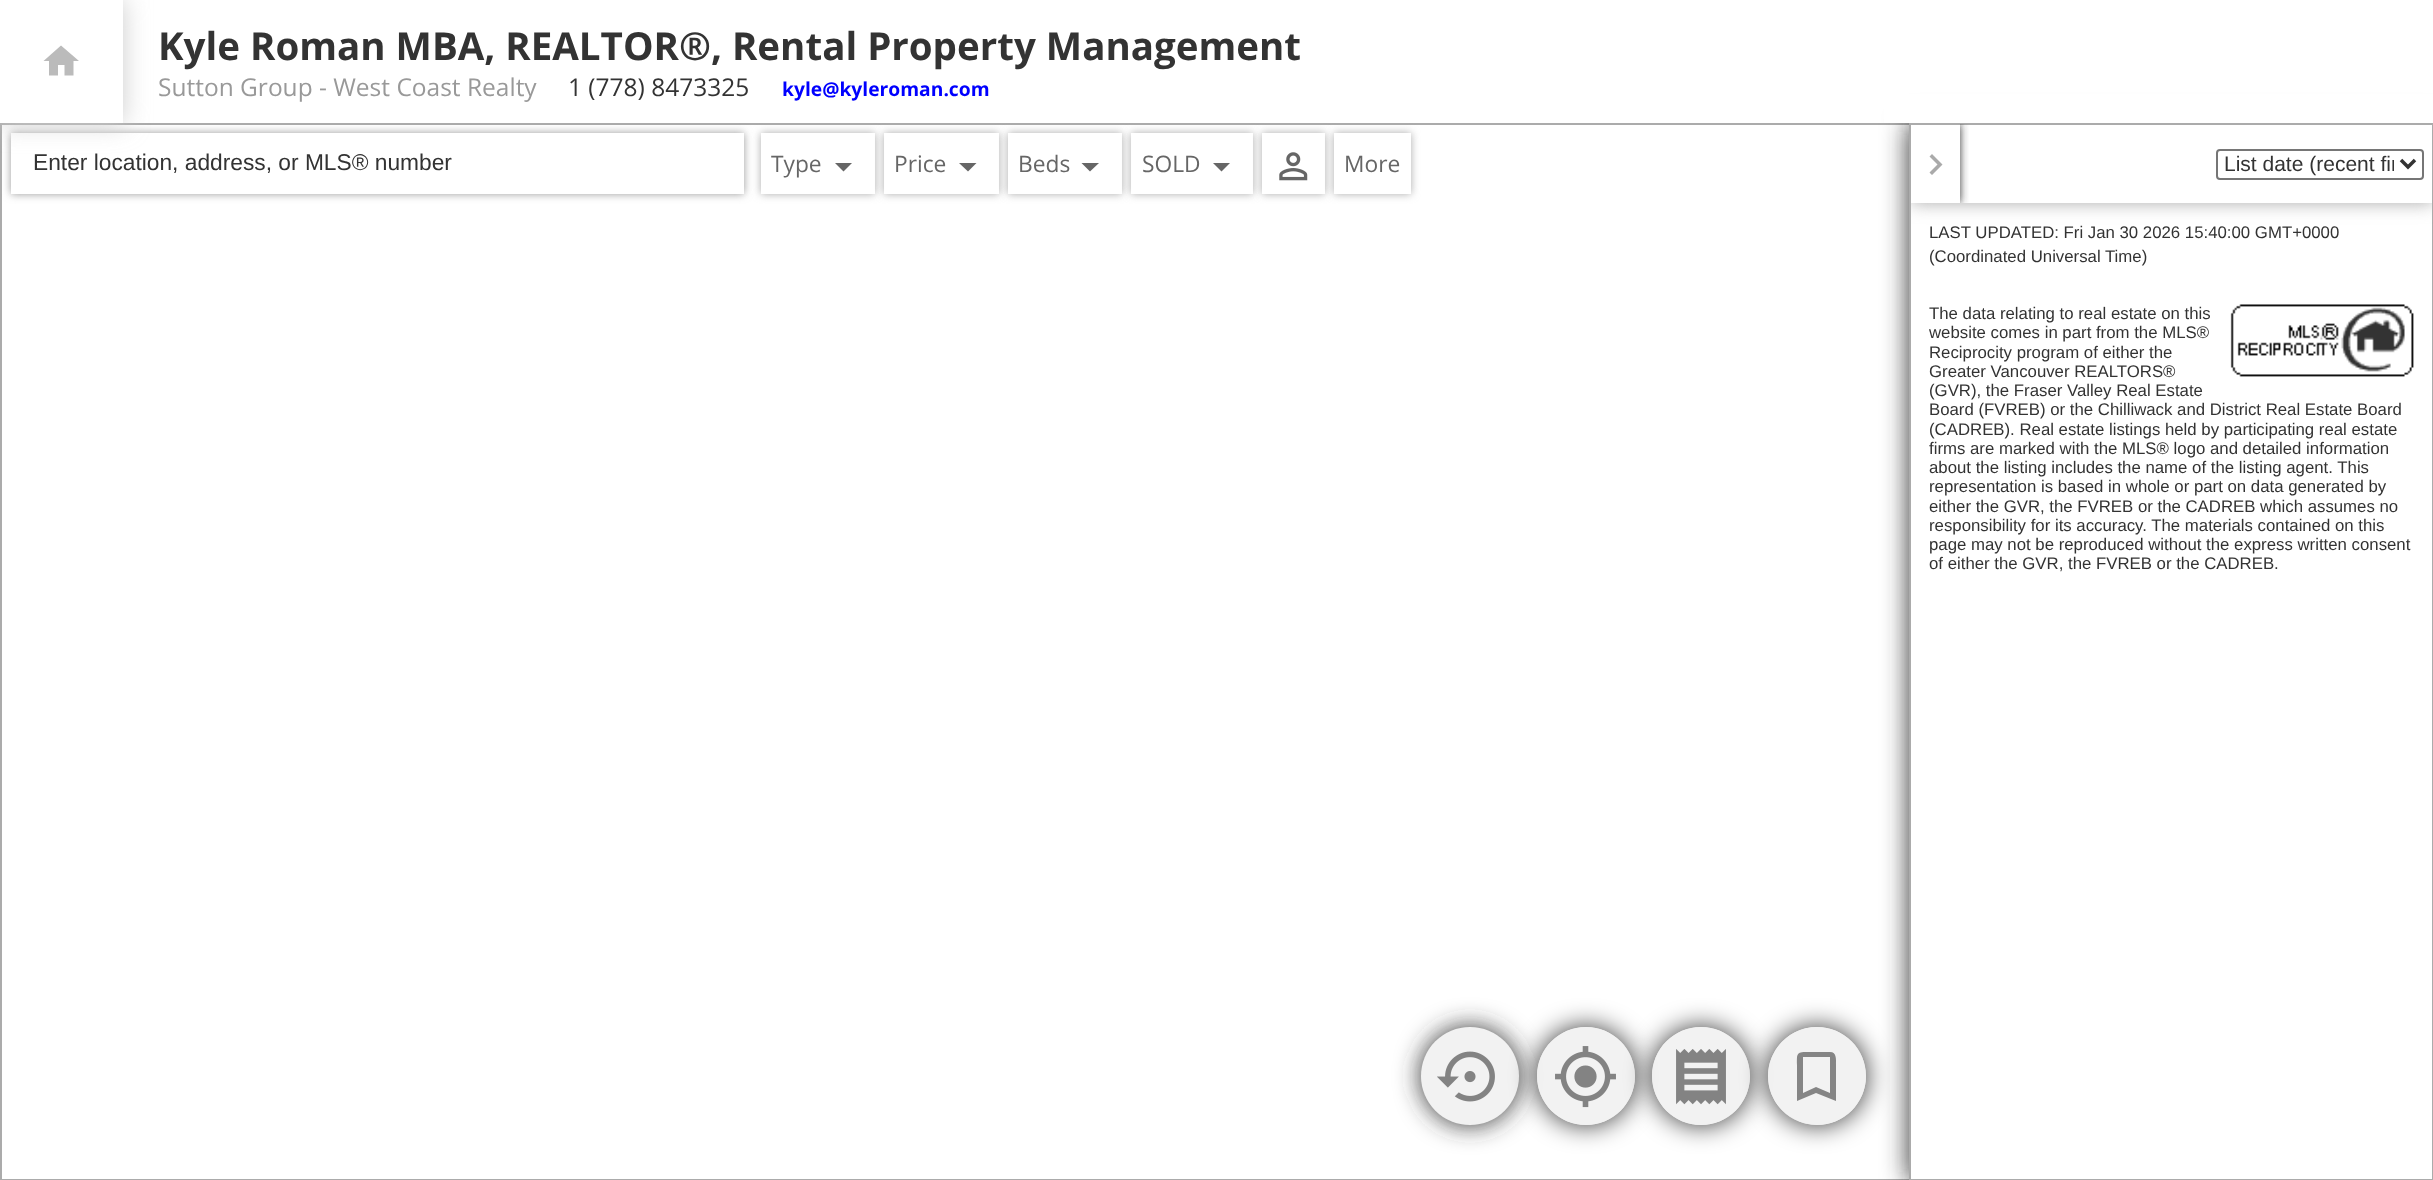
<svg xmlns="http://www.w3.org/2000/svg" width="2433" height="1180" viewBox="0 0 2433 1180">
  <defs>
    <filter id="blur1" x="-50%" y="-200%" width="200%" height="500%"><feGaussianBlur stdDeviation="13"/></filter>
    <clipPath id="clip1"><rect x="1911" y="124" width="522" height="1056"/></clipPath>
    <clipPath id="clip2"><path d="M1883 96H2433V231H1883ZM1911 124H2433V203H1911Z" clip-rule="evenodd"/></clipPath>
    <filter id="blur2" x="-50%" y="-200%" width="200%" height="500%"><feGaussianBlur stdDeviation="9"/></filter>
    <clipPath id="clip3"><rect x="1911" y="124" width="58" height="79"/></clipPath>
    <clipPath id="clip4"><path d="M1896 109H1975V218H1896ZM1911 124H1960V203H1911Z" clip-rule="evenodd"/></clipPath>
    <filter id="blur3" x="-50%" y="-200%" width="200%" height="500%"><feGaussianBlur stdDeviation="4.5"/></filter>
    <clipPath id="clip5"><path d="M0 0H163V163H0ZM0 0H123V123H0Z" clip-rule="evenodd"/></clipPath>
    <clipPath id="clip6"><path d="M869 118H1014V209H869ZM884 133H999V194H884Z" clip-rule="evenodd"/></clipPath>
    <clipPath id="clip7"><path d="M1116 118H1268V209H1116ZM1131 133H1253V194H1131Z" clip-rule="evenodd"/></clipPath>
    <clipPath id="clip8"><rect x="2224" y="151" width="170" height="28"/></clipPath>
    <clipPath id="clip9"><path d="M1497 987H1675V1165H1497ZM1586 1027C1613 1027 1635 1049 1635 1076C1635 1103 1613 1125 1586 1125C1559 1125 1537 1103 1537 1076C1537 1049 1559 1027 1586 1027Z" clip-rule="evenodd"/></clipPath>
    <clipPath id="clip10"><path d="M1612 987H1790V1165H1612ZM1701 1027C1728 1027 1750 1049 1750 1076C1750 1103 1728 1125 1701 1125C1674 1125 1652 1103 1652 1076C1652 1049 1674 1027 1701 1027Z" clip-rule="evenodd"/></clipPath>
    <clipPath id="clip11"><path d="M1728 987H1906V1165H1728ZM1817 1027C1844 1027 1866 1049 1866 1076C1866 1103 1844 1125 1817 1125C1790 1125 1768 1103 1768 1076C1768 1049 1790 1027 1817 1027Z" clip-rule="evenodd"/></clipPath>
  </defs>
  <rect width="100%" height="100%" fill="#ffffff"/>
  <rect x="1" y="124" width="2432" height="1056" fill="none" stroke="#ababab" stroke-width="2"/>
  <rect x="1909" y="123" width="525" height="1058" fill="#333333" filter="url(#blur1)"/>
  <rect x="1910" y="124" width="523" height="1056" fill="#ffffff" stroke="#ababab" stroke-width="2"/>
  <g clip-path="url(#clip1)">
    <g clip-path="url(#clip2)">
      <rect x="1911" y="124" width="522" height="79" fill="#ababab" filter="url(#blur2)"/>
    </g>
  </g>
  <g clip-path="url(#clip3)">
    <g clip-path="url(#clip4)">
      <rect x="1911" y="124" width="49" height="79" fill="#333333" filter="url(#blur3)"/>
    </g>
  </g>
  <rect x="1884" y="94" width="549" height="29" fill="#ffffff"/>
  <rect x="11" y="133" width="733" height="61" fill="#999999" filter="url(#blur3)"/>
  <rect x="11" y="133" width="733" height="61" fill="#ffffff"/>
  <g clip-path="url(#clip5)">
    <rect x="0" y="0" width="123" height="123" fill="#cccccc" filter="url(#blur1)"/>
  </g>
  <path d="M58 75.5V65H64.5V75.5H73.5V61H79L61 45.5L43.5 61H49V75.5Z" fill="#bbbbbb"/>
  <text x="158" y="60" font-family="Open Sans" font-size="38.5" font-weight="bold" fill="#333333">Kyle Roman MBA, REALTOR®, Rental Property Management</text>
  <text x="158" y="96" font-family="Open Sans" font-size="24.5" fill="#999999">Sutton Group - West Coast Realty</text>
  <text x="568" y="96" font-family="Open Sans" font-size="24.5" fill="#333333">1 (778) 8473325</text>
  <text x="782" y="96" font-family="Open Sans" font-size="19.25" font-weight="bold" fill="#0000ff">kyle@kyleroman.com</text>
  <text x="33" y="170" font-family="Liberation Sans" font-size="22.75" fill="#333333">Enter location, address, or MLS® number</text>
  <rect x="761" y="133" width="114" height="61" fill="#aaaaaa" filter="url(#blur3)"/>
  <rect x="761" y="133" width="114" height="61" fill="#ffffff"/>
  <text x="771" y="172" font-family="Open Sans" font-size="22.75" fill="#666666">Type</text>
  <path d="M835 163L843.5 171.5L852 163Z" fill="#666666"/>
  <g clip-path="url(#clip6)">
    <rect x="884" y="133" width="115" height="61" fill="#aaaaaa" filter="url(#blur3)"/>
  </g>
  <text x="894" y="172" font-family="Open Sans" font-size="22.75" fill="#666666">Price</text>
  <path d="M959 163L968 171.5L976.5 163Z" fill="#666666"/>
  <rect x="1008" y="133" width="114" height="61" fill="#aaaaaa" filter="url(#blur3)"/>
  <rect x="1008" y="133" width="114" height="61" fill="#ffffff"/>
  <text x="1018" y="172" font-family="Open Sans" font-size="22.75" fill="#666666">Beds</text>
  <path d="M1081.5 163L1090 171.5L1099 163Z" fill="#666666"/>
  <g clip-path="url(#clip7)">
    <rect x="1131" y="133" width="122" height="61" fill="#aaaaaa" filter="url(#blur3)"/>
  </g>
  <text x="1142" y="172" font-family="Open Sans" font-size="22.75" fill="#666666">SOLD</text>
  <path d="M1213 163L1221.5 171.5L1230 163Z" fill="#666666"/>
  <rect x="1262" y="133" width="63" height="61" fill="#aaaaaa" filter="url(#blur3)"/>
  <rect x="1262" y="133" width="63" height="61" fill="#ffffff"/>
  <image x="1279" y="152" width="29" height="29" href="img1.png"/>
  <rect x="1334" y="133" width="77" height="61" fill="#aaaaaa" filter="url(#blur3)"/>
  <rect x="1334" y="133" width="77" height="61" fill="#ffffff"/>
  <text x="1344" y="172" font-family="Open Sans" font-size="22.75" fill="#666666">More</text>
  <path d="M1932 154L1929.5 156.5L1937.5 164.5L1929.5 172.5L1932 175L1942.5 164.5Z" fill="#aaaaaa"/>
  <rect x="2217" y="150" width="206" height="29" rx="3" fill="none" stroke="#767676" stroke-width="2"/>
  <path d="M2401 160L2408 167L2415 160" fill="none" stroke="#333333" stroke-width="3.5"/>
  <g clip-path="url(#clip8)">
    <text x="2224" y="171" font-family="Liberation Sans" font-size="21" fill="#333333">List date (recent fir</text>
  </g>
  <text x="1929" y="238" font-family="Liberation Sans" font-size="16.8" fill="#333333">LAST UPDATED: Fri Jan 30 2026 15:40:00 GMT+0000</text>
  <text x="1929" y="262" font-family="Liberation Sans" font-size="16.8" fill="#333333">(Coordinated Universal Time)</text>
  <image x="2230" y="304" width="184" height="73" href="img2.png"/>
  <text x="1929" y="319" font-family="Liberation Sans" font-size="16.8" fill="#333333">The data relating to real estate on this</text>
  <text x="1929" y="338" font-family="Liberation Sans" font-size="16.8" fill="#333333">website comes in part from the MLS®</text>
  <text x="1929" y="358" font-family="Liberation Sans" font-size="16.8" fill="#333333">Reciprocity program of either the</text>
  <text x="1929" y="377" font-family="Liberation Sans" font-size="16.8" fill="#333333">Greater Vancouver REALTORS®</text>
  <text x="1929" y="396" font-family="Liberation Sans" font-size="16.8" fill="#333333">(GVR), the Fraser Valley Real Estate</text>
  <text x="1929" y="415" font-family="Liberation Sans" font-size="16.8" fill="#333333">Board (FVREB) or the Chilliwack and District Real Estate Board</text>
  <text x="1929" y="435" font-family="Liberation Sans" font-size="16.8" fill="#333333">(CADREB). Real estate listings held by participating real estate</text>
  <text x="1929" y="454" font-family="Liberation Sans" font-size="16.8" fill="#333333">firms are marked with the MLS® logo and detailed information</text>
  <text x="1929" y="473" font-family="Liberation Sans" font-size="16.8" fill="#333333">about the listing includes the name of the listing agent. This</text>
  <text x="1929" y="492" font-family="Liberation Sans" font-size="16.8" fill="#333333">representation is based in whole or part on data generated by</text>
  <text x="1929" y="512" font-family="Liberation Sans" font-size="16.8" fill="#333333">either the GVR, the FVREB or the CADREB which assumes no</text>
  <text x="1929" y="531" font-family="Liberation Sans" font-size="16.8" fill="#333333">responsibility for its accuracy. The materials contained on this</text>
  <text x="1929" y="550" font-family="Liberation Sans" font-size="16.8" fill="#333333">page may not be reproduced without the express written consent</text>
  <text x="1929" y="569" font-family="Liberation Sans" font-size="16.8" fill="#333333">of either the GVR, the FVREB or the CADREB.</text>
  <rect x="1421" y="1027" width="98" height="98" rx="49" fill="#333333" filter="url(#blur1)"/>
  <circle cx="1470" cy="1076" r="49" fill="#f2f2f2"/>
  <image x="1437" y="1051" width="58" height="51" href="img3.png"/>
  <g clip-path="url(#clip9)">
    <rect x="1537" y="1027" width="98" height="98" rx="49" fill="#000000" fill-opacity="0.8" filter="url(#blur1)"/>
  </g>
  <circle cx="1586" cy="1076" r="49" fill="#efefef" fill-opacity="0.8"/>
  <image x="1555" y="1046" width="61" height="62" href="img4.png"/>
  <g clip-path="url(#clip10)">
    <rect x="1652" y="1027" width="98" height="98" rx="49" fill="#000000" fill-opacity="0.8" filter="url(#blur1)"/>
  </g>
  <circle cx="1701" cy="1076" r="49" fill="#efefef" fill-opacity="0.8"/>
  <image x="1676" y="1049" width="50" height="56" href="img5.png"/>
  <g clip-path="url(#clip11)">
    <rect x="1768" y="1027" width="98" height="98" rx="49" fill="#000000" fill-opacity="0.8" filter="url(#blur1)"/>
  </g>
  <circle cx="1817" cy="1076" r="49" fill="#efefef" fill-opacity="0.8"/>
  <path d="M1830 1052H1807C1796 1052 1797 1054 1797 1065V1101L1816 1093L1836 1101V1065C1836 1060 1837 1052 1830 1052ZM1830 1093L1816 1087L1803 1093V1057H1830Z" fill="#858585"/>
</svg>
